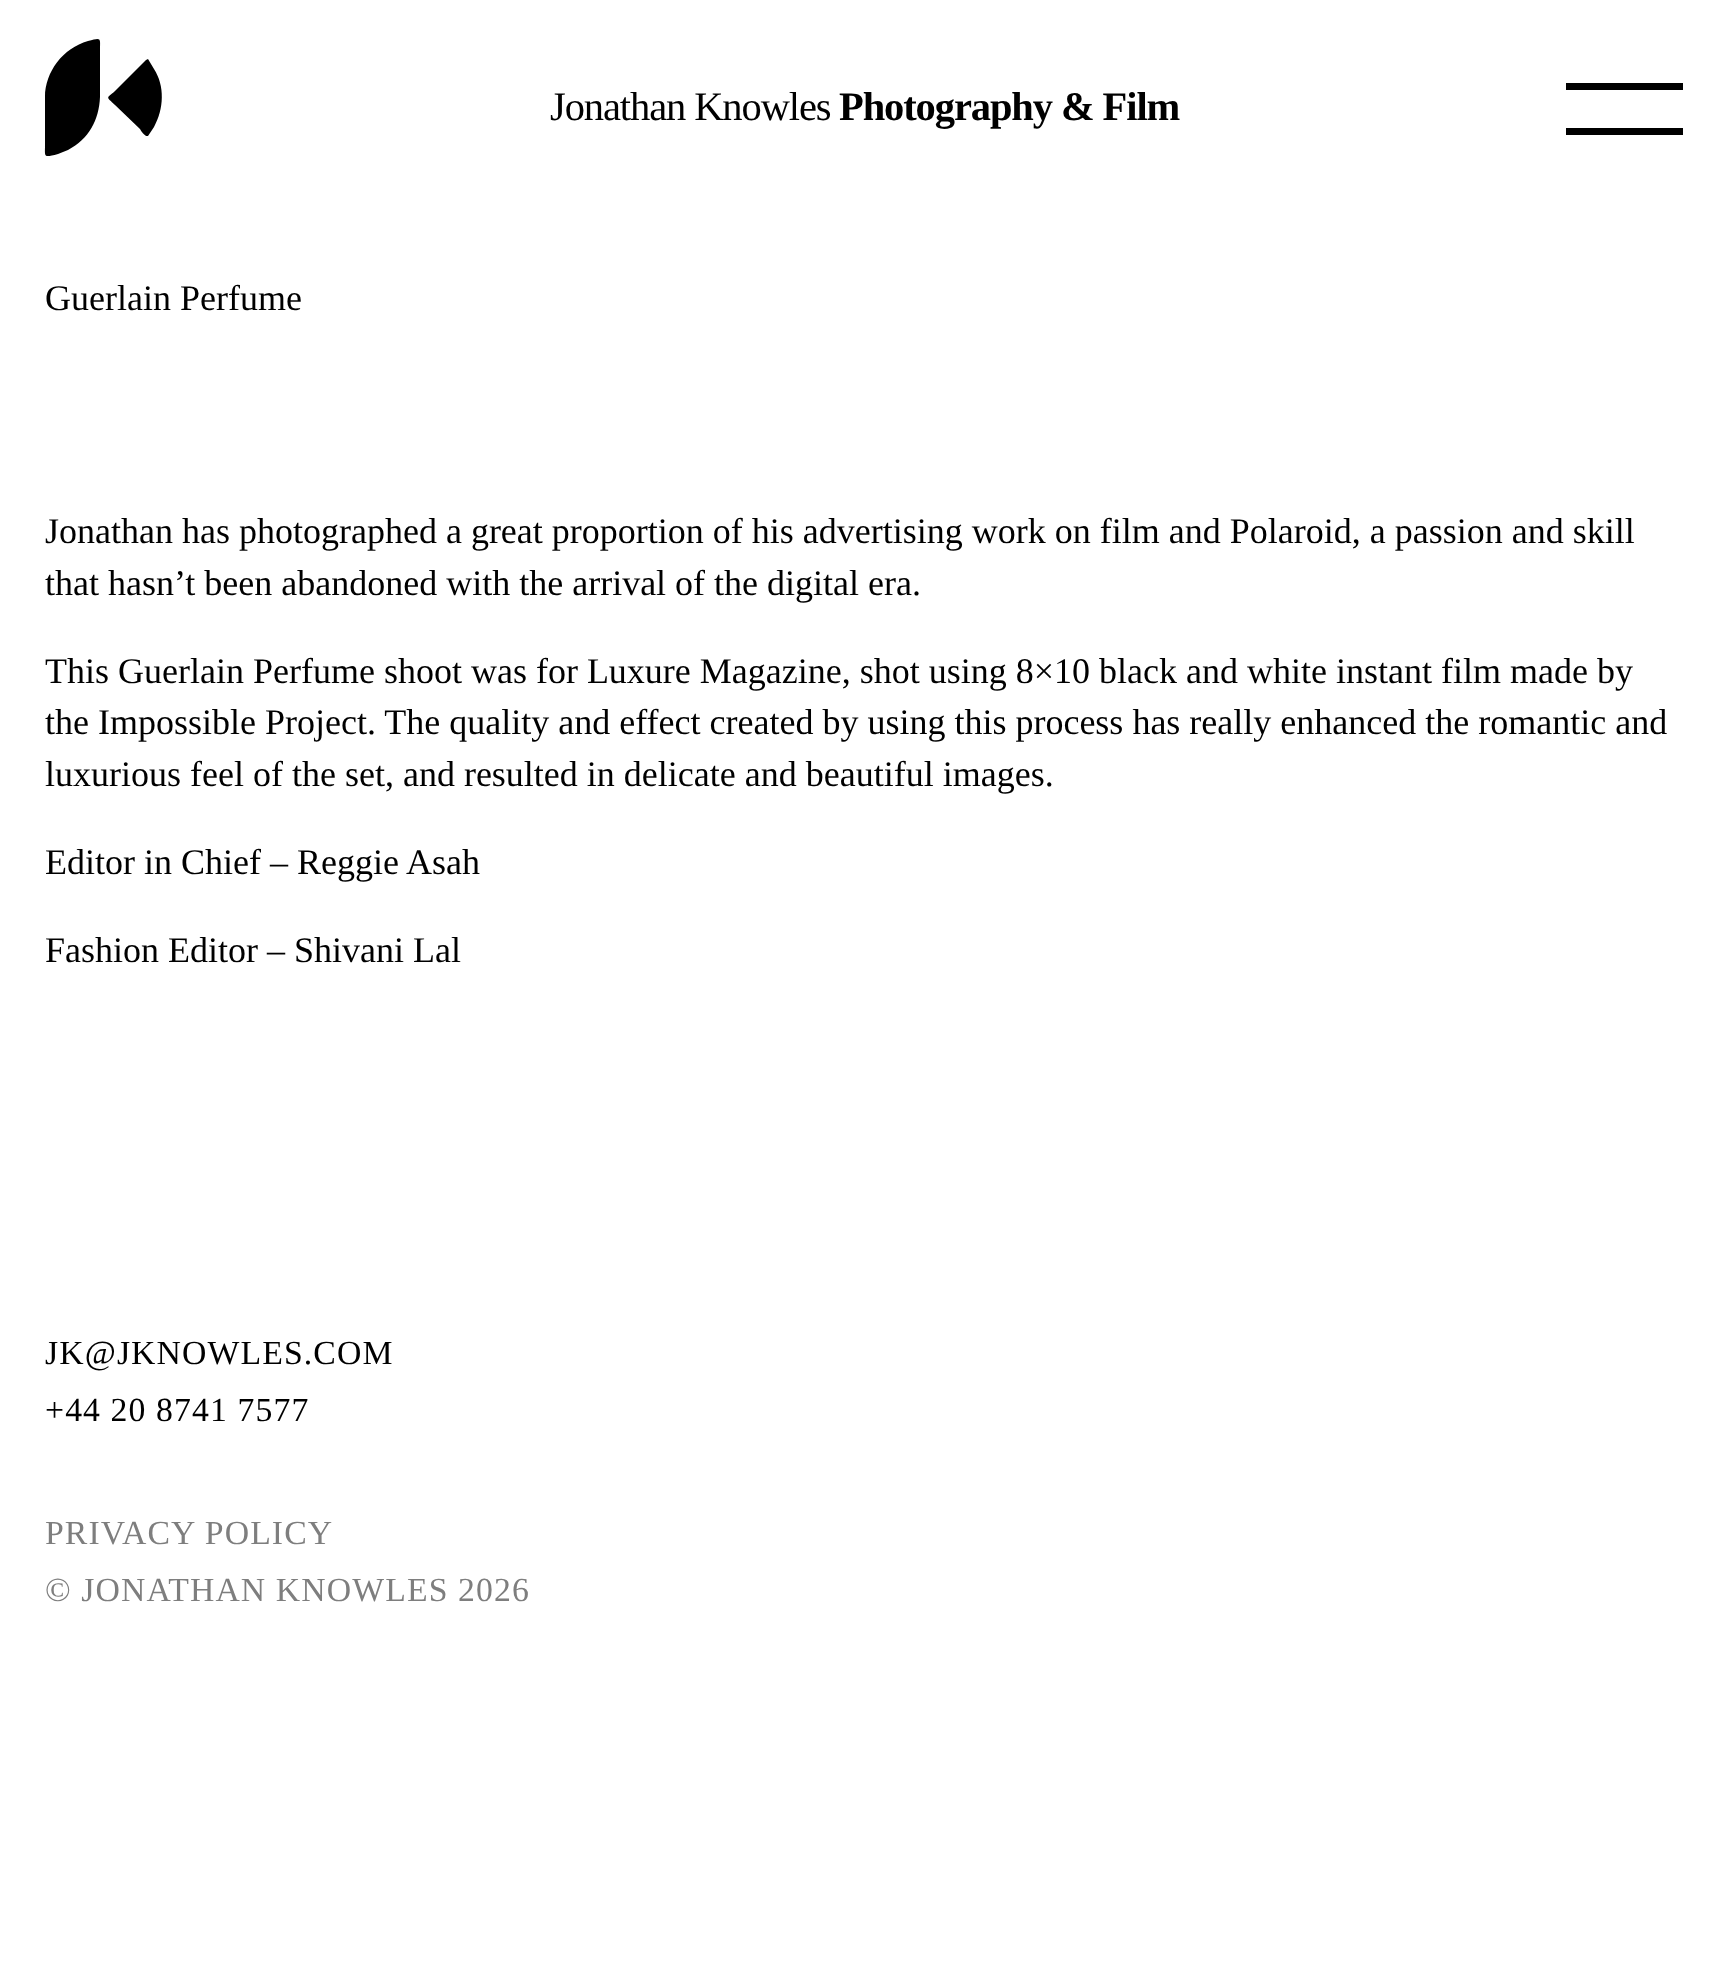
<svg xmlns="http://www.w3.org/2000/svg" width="1728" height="1969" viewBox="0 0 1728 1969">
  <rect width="100%" height="100%" fill="#ffffff"/>
  <path d="M45 97V145C45 157 43 158 58 154L68 150C89 139 99 120 100 97V50C100 38 102 37 88 41C63 48 45 72 45 97ZM146 60L115 91C106 99 106 96 115 105L140 129C141 131 145 137 148 136L154 127C164 109 165 86 154 69L148 59Z" fill="#000000"/>
  <text x="550" y="120" font-family="Liberation Serif" font-size="40.5" letter-spacing="-1.1" fill="#000000">Jonathan Knowles</text>
  <text x="839" y="120" font-family="Liberation Serif" font-size="40.5" font-weight="bold" letter-spacing="-1.1" fill="#000000">Photography &amp; Film</text>
  <rect x="1566" y="83" width="117" height="7" fill="#000000"/>
  <rect x="1566" y="128" width="117" height="7" fill="#000000"/>
  <text x="45" y="310" font-family="Liberation Serif" font-size="36" fill="#000000">Guerlain Perfume</text>
  <text x="45" y="543" font-family="Liberation Serif" font-size="36" fill="#000000">Jonathan has photographed a great proportion of his advertising work on film and Polaroid, a passion and skill</text>
  <text x="45" y="595" font-family="Liberation Serif" font-size="36" fill="#000000">that hasn’t been abandoned with the arrival of the digital era.</text>
  <text x="45" y="683" font-family="Liberation Serif" font-size="36" fill="#000000">This Guerlain Perfume shoot was for Luxure Magazine, shot using 8×10 black and white instant film made by</text>
  <text x="45" y="734" font-family="Liberation Serif" font-size="36" fill="#000000">the Impossible Project. The quality and effect created by using this process has really enhanced the romantic and</text>
  <text x="45" y="786" font-family="Liberation Serif" font-size="36" fill="#000000">luxurious feel of the set, and resulted in delicate and beautiful images.</text>
  <text x="45" y="874" font-family="Liberation Serif" font-size="36" fill="#000000">Editor in Chief – Reggie Asah</text>
  <text x="45" y="962" font-family="Liberation Serif" font-size="36" fill="#000000">Fashion Editor – Shivani Lal</text>
  <text x="45" y="1364" font-family="Liberation Serif" font-size="33.75" letter-spacing="1.1" fill="#000000">JK@JKNOWLES.COM</text>
  <text x="45" y="1421" font-family="Liberation Serif" font-size="33.75" letter-spacing="1.1" fill="#000000">+44 20 8741 7577</text>
  <text x="45" y="1544" font-family="Liberation Serif" font-size="33.75" letter-spacing="1.1" fill="#7e7e7e">PRIVACY POLICY</text>
  <text x="45" y="1601" font-family="Liberation Serif" font-size="33.75" letter-spacing="1.1" fill="#7e7e7e">© JONATHAN KNOWLES 2026</text>
</svg>
